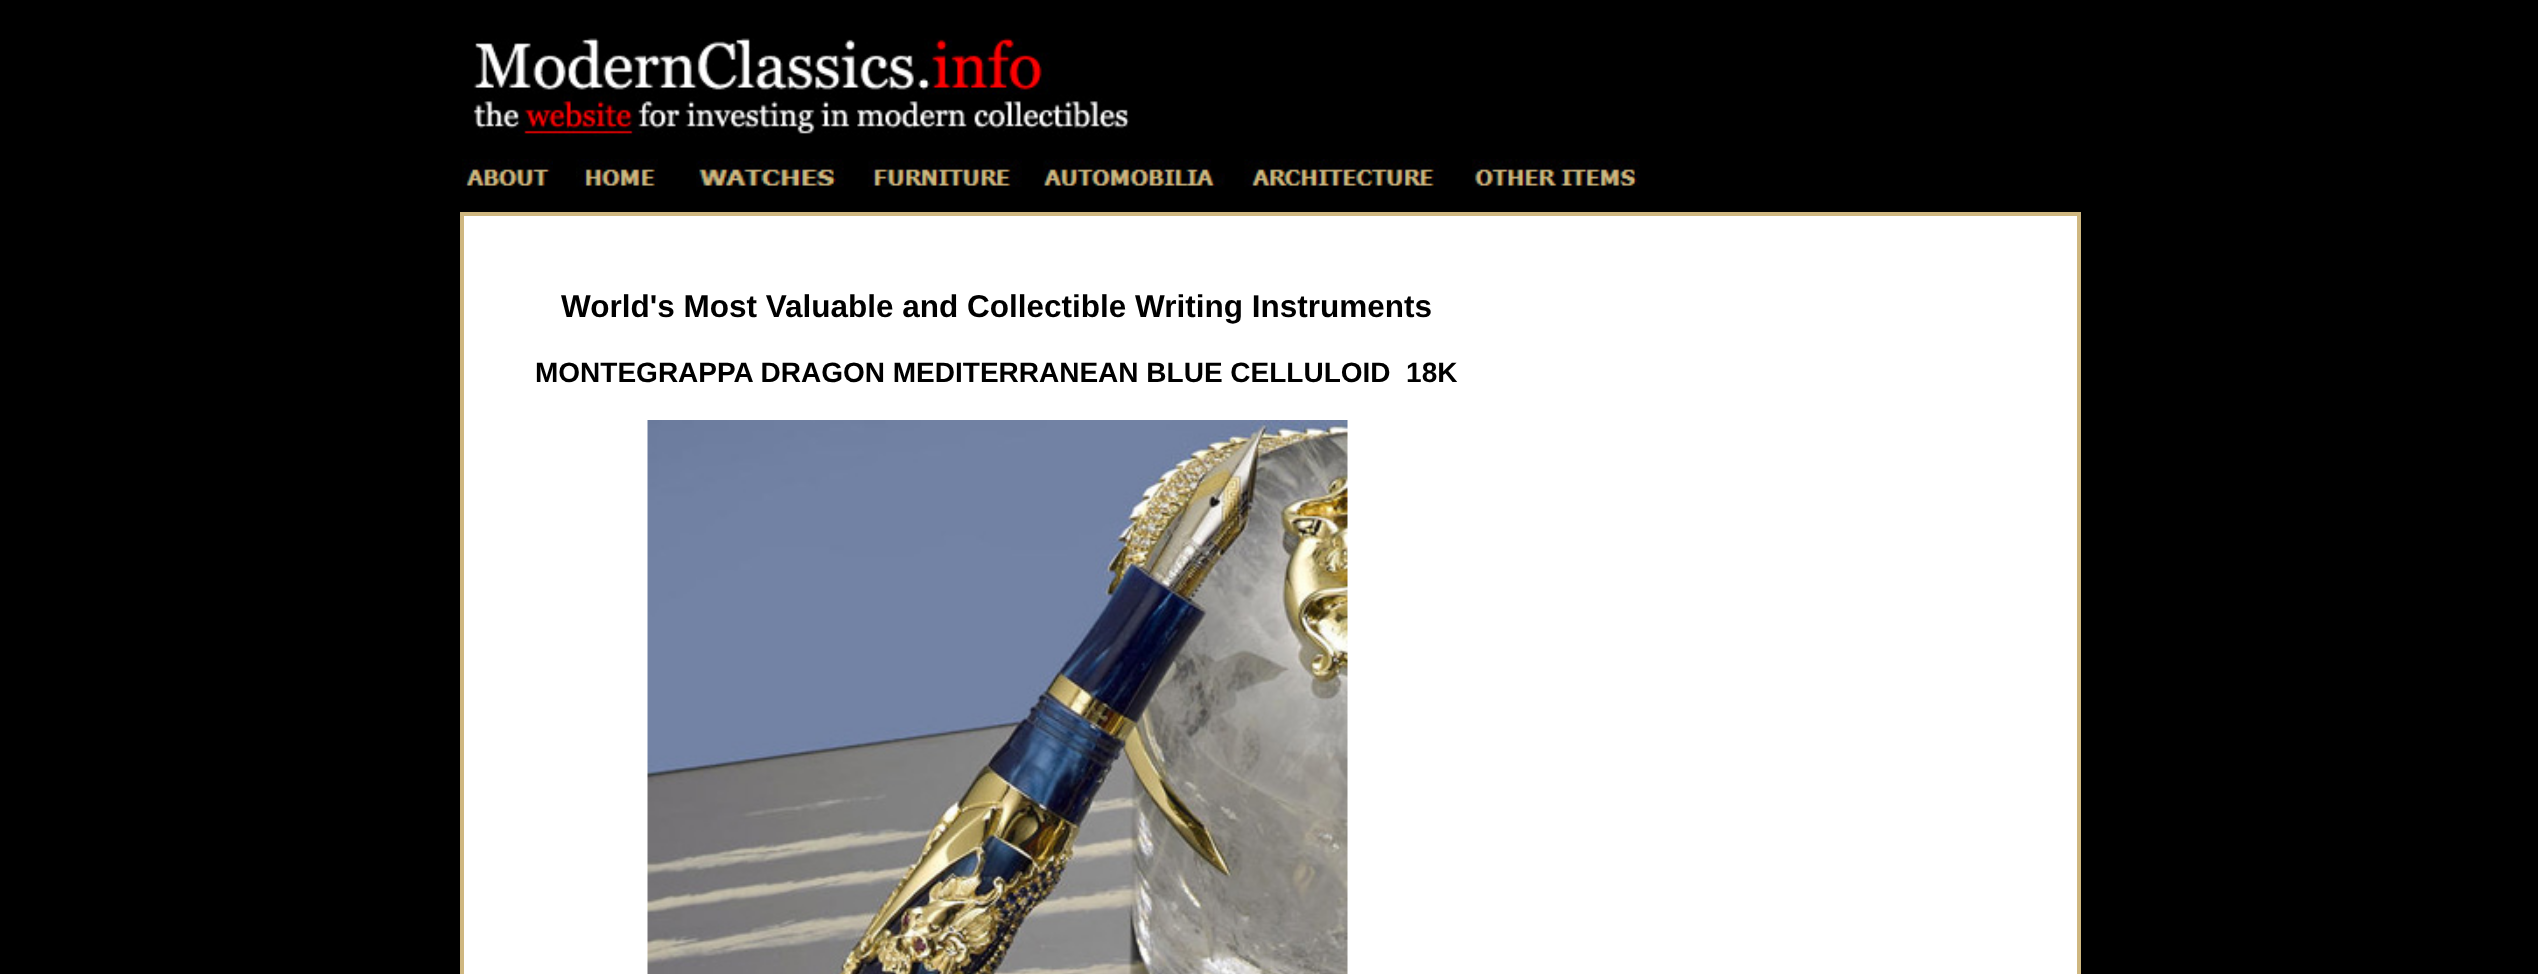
<svg xmlns="http://www.w3.org/2000/svg" width="2538" height="974" viewBox="0 0 2538 974">
  <rect width="100%" height="100%" fill="#000000"/>
  <image x="473" y="38" width="657" height="99" href="img1.png"/>
  <image x="462" y="159" width="91" height="28" href="img2.png"/>
  <image x="576" y="159" width="82" height="28" href="img3.png"/>
  <image x="696" y="159" width="148" height="28" href="img4.png"/>
  <image x="868" y="159" width="154" height="28" href="img5.png"/>
  <image x="1042" y="159" width="183" height="28" href="img6.png"/>
  <image x="1244" y="159" width="196" height="28" href="img7.png"/>
  <image x="1472" y="159" width="168" height="28" href="img8.png"/>
  <rect x="462" y="214" width="1617" height="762" fill="#ffffff" stroke="#cfb780" stroke-width="4"/>
  <text x="561" y="317" font-family="Liberation Sans" font-size="31.5" font-weight="bold" fill="#000000">World's Most Valuable and Collectible Writing Instruments</text>
  <text x="535" y="382" font-family="Liberation Sans" font-size="28" font-weight="bold" fill="#000000" xml:space="preserve">MONTEGRAPPA DRAGON MEDITERRANEAN BLUE CELLULOID  18K</text>
  <image x="647" y="420" width="701" height="554" href="img9.png"/>
</svg>
